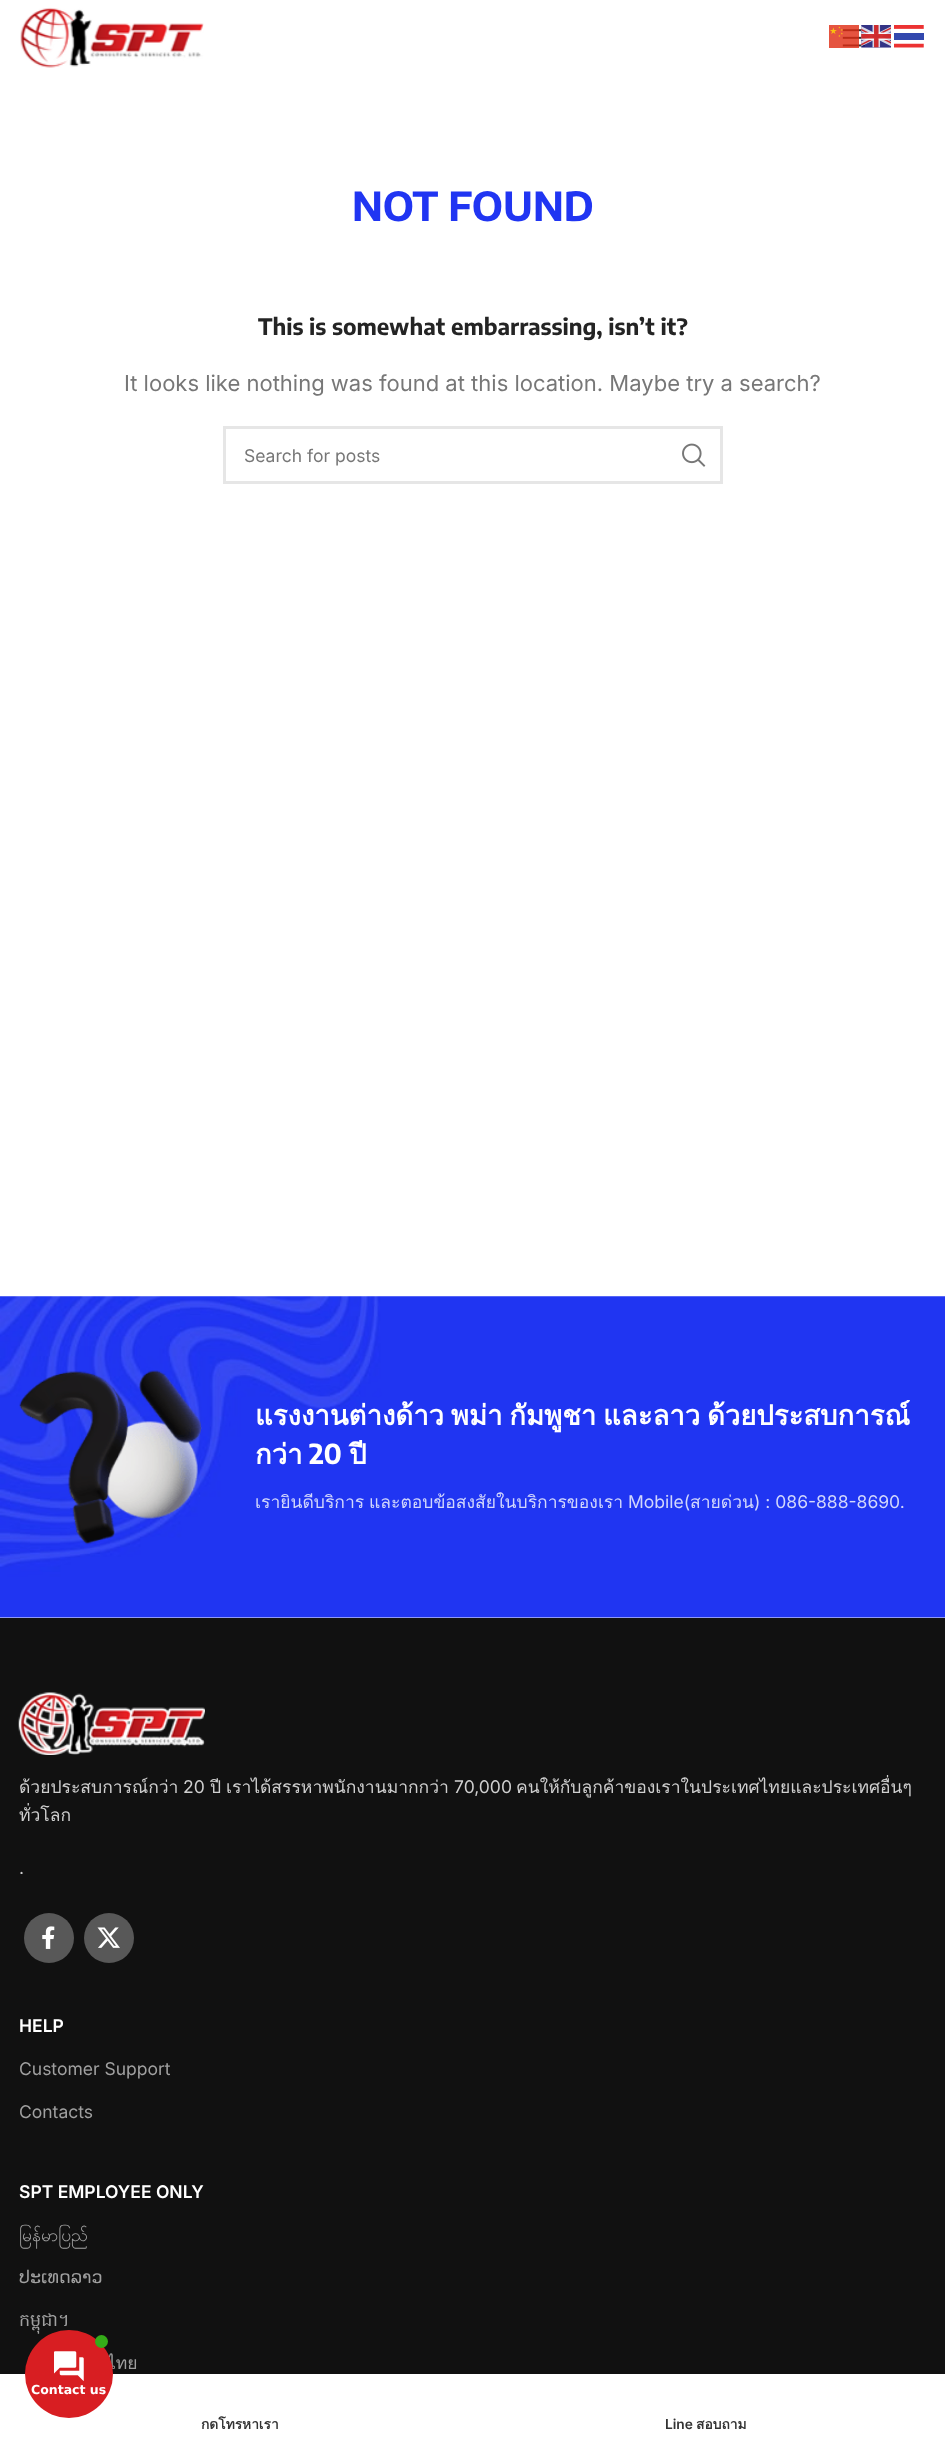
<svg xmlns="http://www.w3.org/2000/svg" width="945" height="2442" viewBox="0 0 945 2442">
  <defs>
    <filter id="blur1" x="-50%" y="-200%" width="200%" height="500%"><feGaussianBlur stdDeviation="5.5"/></filter>
  </defs>
  <rect width="100%" height="100%" fill="#ffffff"/>
  <image x="842" y="29" width="23" height="18" href="img5.png"/>
  <image x="829" y="25" width="30" height="23" href="img1.png"/>
  <image x="861" y="25" width="30" height="23" href="img2.png"/>
  <image x="894" y="25" width="30" height="23" href="img3.png"/>
  <image x="20" y="7" width="184" height="61" href="img4.png"/>
  <text x="352" y="221" font-family="Encode Sans Condensed" font-size="40" font-weight="bold" fill="#2035f2">NOT FOUND</text>
  <text x="258" y="335" font-family="Encode Sans Condensed" font-size="22.5" font-weight="bold" fill="#242424">This is somewhat embarrassing, isn’t it?</text>
  <text x="124" y="391" font-family="Inter" font-size="22" fill="#777777">It looks like nothing was found at this location. Maybe try a search?</text>
  <rect x="224.5" y="427.5" width="497" height="55" fill="none" stroke="#e6e6e6" stroke-width="3"/>
  <text x="244" y="462" font-family="Inter" font-size="17.5" fill="#777777">Search for posts</text>
  <image x="682" y="443" width="24" height="24" href="img6.png"/>
  <image x="0" y="1296" width="945" height="322" href="img7.png"/>
  <image x="19" y="1370" width="183" height="175" href="img8.png"/>
  <text x="255" y="1425" word-spacing="-2.5" font-family="Loma" font-size="27.5" font-weight="bold" fill="#ffffff">แรงงานต่างด้าว พม่า กัมพูชา และลาว ด้วยประสบการณ์</text>
  <text x="255" y="1464" font-family="Loma" font-size="27.5" font-weight="bold" fill="#ffffff">กว่า</text>
  <text x="309" y="1464" font-family="Encode Sans Condensed" font-size="27.5" font-weight="bold" fill="#ffffff">20</text>
  <text x="349" y="1464" font-family="Loma" font-size="27.5" font-weight="bold" fill="#ffffff">ปี</text>
  <text x="255" y="1508" font-family="Loma" font-size="17.5" fill="#d2d7fc">เรายินดีบริการ</text>
  <text x="369" y="1508" font-family="Loma" font-size="17.5" fill="#d2d7fc">และตอบข้อสงสัยในบริการของเรา</text>
  <text x="628" y="1508" font-family="Inter" font-size="17.5" fill="#d2d7fc">Mobile(</text>
  <text x="690" y="1508" font-family="Loma" font-size="17.5" fill="#d2d7fc">สายด่วน</text>
  <text x="754" y="1508" font-family="Inter" font-size="17.5" fill="#d2d7fc">) : 086-888-8690.</text>
  <rect x="0" y="1618" width="945" height="756" fill="#111111"/>
  <image x="18" y="1692" width="187" height="63" href="img9.png"/>
  <text x="19" y="1793" font-family="Loma" font-size="17.5" fill="#cfcfcf">ด้วยประสบการณ์กว่า</text>
  <text x="183" y="1793" font-family="Inter" font-size="17.5" fill="#cfcfcf">20</text>
  <text x="210" y="1793" font-family="Loma" font-size="17.5" fill="#cfcfcf">ปี</text>
  <text x="226" y="1793" font-family="Loma" font-size="17.5" fill="#cfcfcf">เราได้สรรหาพนักงานมากกว่า</text>
  <text x="454" y="1793" font-family="Inter" font-size="17.5" fill="#cfcfcf">70,000</text>
  <text x="516" y="1793" font-family="Loma" font-size="17.5" fill="#cfcfcf">คนให้กับลูกค้าของเราในประเทศไทยและประเทศอื่นๆ</text>
  <text x="19" y="1821" font-family="Loma" font-size="17.5" fill="#cfcfcf">ทั่วโลก</text>
  <text x="19" y="1874" font-family="Inter" font-size="17.5" fill="#cfcfcf">.</text>
  <circle cx="49" cy="1938" r="25" fill="#585858"/>
  <image x="42" y="1926" width="13" height="23" href="img10.png"/>
  <circle cx="109" cy="1938" r="25" fill="#585858"/>
  <image x="97" y="1927" width="23" height="21" href="img11.png"/>
  <text x="19" y="2032" font-family="Inter" font-size="17.5" font-weight="600" fill="#ffffff">HELP</text>
  <text x="19" y="2075" font-family="Inter" font-size="17.5" fill="#a0a0a0">Customer Support</text>
  <text x="19" y="2118" font-family="Inter" font-size="17.5" fill="#a0a0a0">Contacts</text>
  <text x="19" y="2198" font-family="Inter" font-size="17.5" font-weight="600" fill="#ffffff">SPT EMPLOYEE ONLY</text>
  <text x="19" y="2241" font-family="Padauk" font-size="17.5" fill="#a0a0a0">မြန်မာပြည်</text>
  <text x="19" y="2283" font-family="DejaVu Sans" font-size="17.5" fill="#a0a0a0">ປະເທດລາວ</text>
  <text x="19" y="2326" font-family="Hanuman" font-size="17.5" fill="#a0a0a0">កម្ពុជា។</text>
  <text x="107" y="2369" font-family="Loma" font-size="17.5" fill="#a0a0a0">ไทย</text>
  <rect x="0" y="2374" width="945" height="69" fill="#000000" fill-opacity="0.12" filter="url(#blur1)"/>
  <rect x="0" y="2374" width="945" height="68" fill="#ffffff"/>
  <circle cx="69" cy="2374" r="44" fill="#d81e22"/>
  <circle cx="101.5" cy="2341.5" r="6.5" fill="#35ac19"/>
  <image x="54" y="2351" width="30" height="30" href="img12.png"/>
  <text x="31" y="2394" font-family="DejaVu Sans" font-size="12.5" font-weight="bold" fill="#ffffff">Contact us</text>
  <text x="201" y="2429" font-family="Loma" font-size="13.75" font-weight="bold" fill="#333333">กดโทรหาเรา</text>
  <text x="665" y="2429" font-family="Inter" font-size="13.75" font-weight="600" fill="#333333">Line</text>
  <text x="696" y="2429" font-family="Loma" font-size="13.75" font-weight="bold" fill="#333333">สอบถาม</text>
</svg>
